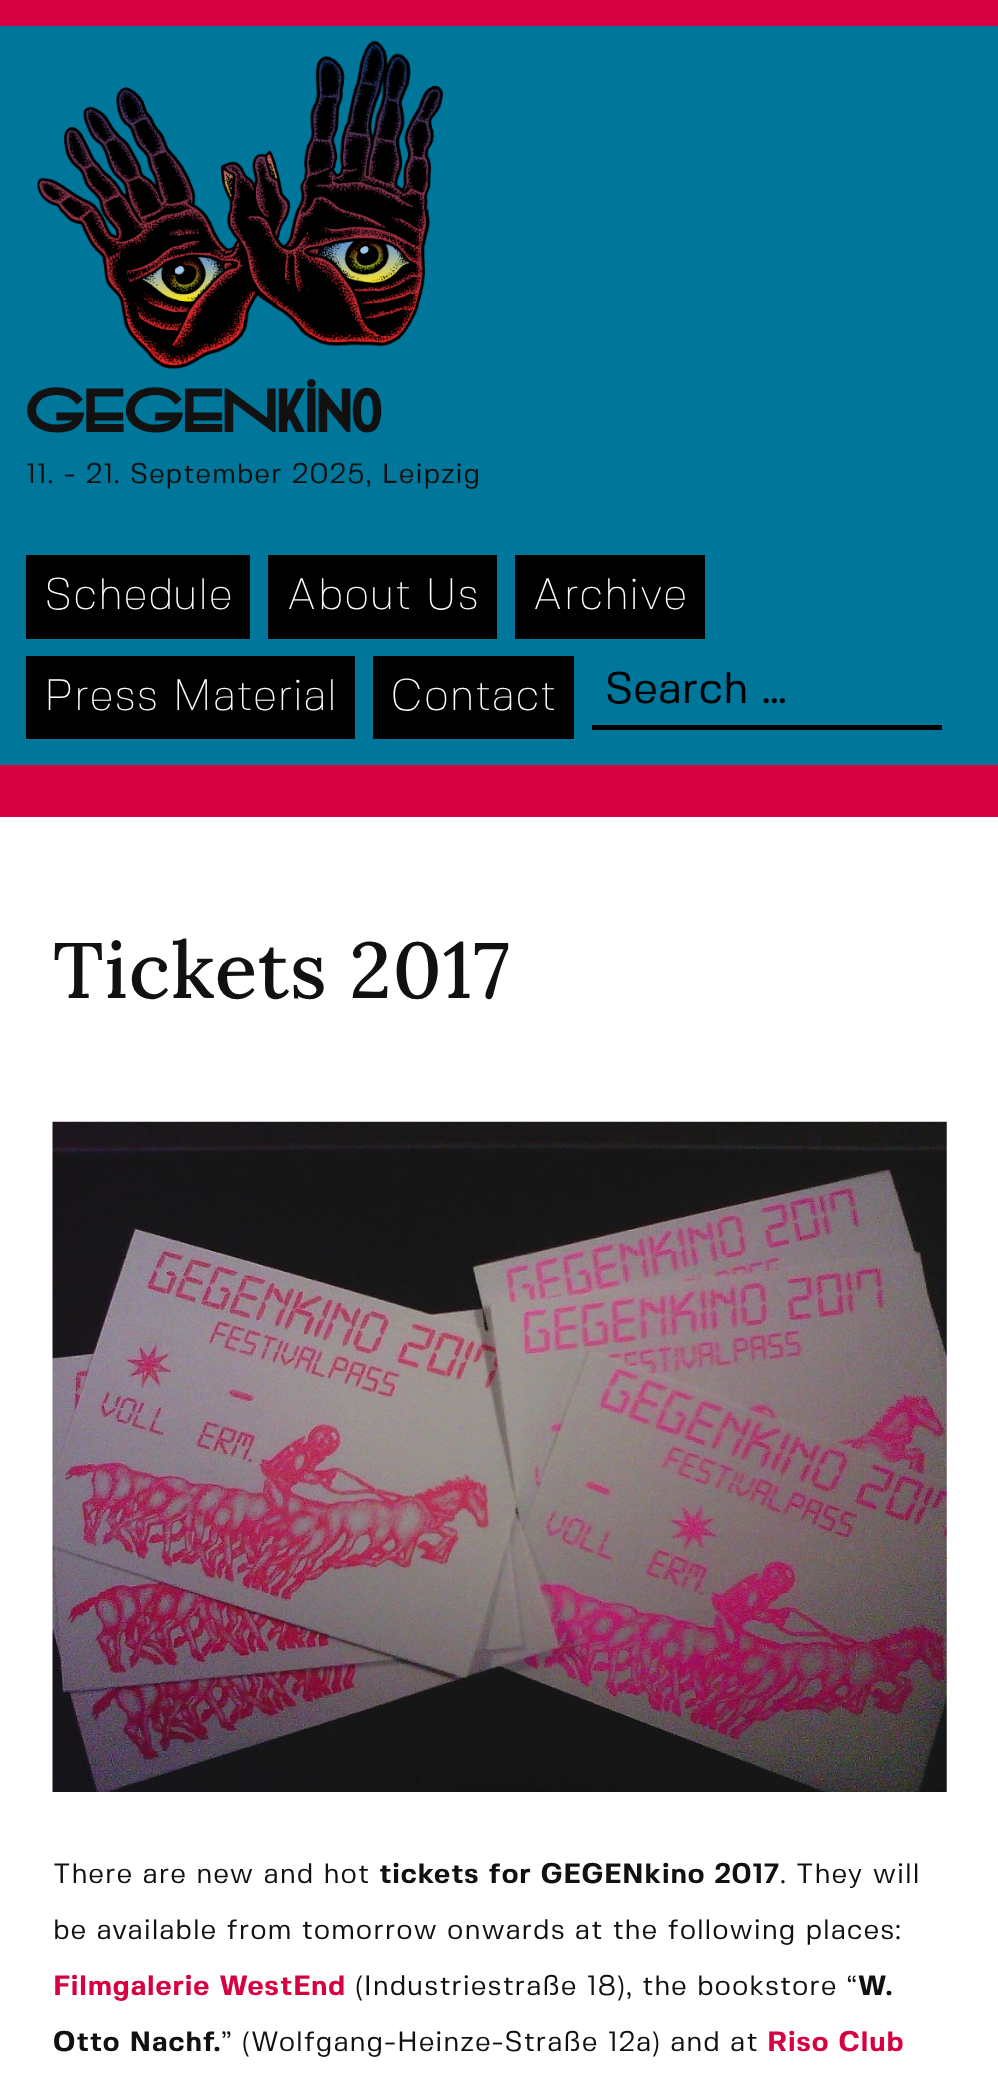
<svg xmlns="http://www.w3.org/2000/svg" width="998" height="2089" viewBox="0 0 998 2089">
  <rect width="100%" height="100%" fill="#d70040"/>
  <rect x="0" y="26" width="998" height="739" fill="#00769b"/>
  <image x="37" y="40" width="406" height="329" href="img1.png"/>
  <text x="26" y="432" font-family="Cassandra" font-size="70" font-weight="bold" letter-spacing="0.88" fill="#111111">GEGENkino</text>
  <text x="26" y="483" font-family="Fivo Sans" font-size="28" letter-spacing="0.88" fill="#111111">11. - 21. September 2025, Leipzig</text>
  <rect x="26" y="555" width="224" height="84" fill="#000000"/>
  <text x="44" y="609" font-family="Fivo Sans" font-size="43.75" font-weight="100" letter-spacing="0.88" fill="#ffffff">Schedule</text>
  <rect x="268" y="555" width="229" height="84" fill="#000000"/>
  <text x="286" y="609" font-family="Fivo Sans" font-size="43.75" font-weight="100" letter-spacing="0.88" fill="#ffffff">About Us</text>
  <rect x="515" y="555" width="190" height="84" fill="#000000"/>
  <text x="532" y="609" font-family="Fivo Sans" font-size="43.75" font-weight="100" letter-spacing="0.88" fill="#ffffff">Archive</text>
  <rect x="26" y="656" width="329" height="83" fill="#000000"/>
  <text x="44" y="710" font-family="Fivo Sans" font-size="43.75" font-weight="100" letter-spacing="0.88" fill="#ffffff">Press Material</text>
  <rect x="373" y="656" width="201" height="83" fill="#000000"/>
  <text x="390" y="710" font-family="Fivo Sans" font-size="43.75" font-weight="100" letter-spacing="0.88" fill="#ffffff">Contact</text>
  <rect x="592" y="725" width="350" height="5" fill="#000000"/>
  <text x="605" y="703" font-family="Fivo Sans" font-size="43.75" fill="#000000">Search …</text>
  <rect x="0" y="817" width="998" height="1272" fill="#ffffff"/>
  <text x="53" y="998" font-family="Lora" font-size="78.75" font-weight="500" letter-spacing="0.88" fill="#111111">Tickets 2017</text>
  <image x="52" y="1121" width="895" height="671" href="img2.png"/>
  <text x="53" y="1883" font-family="Fivo Sans" font-size="28" letter-spacing="0.88" fill="#111111">There are new and hot</text>
  <text x="379" y="1883" font-family="Fivo Sans" font-size="28" font-weight="bold" letter-spacing="0.88" fill="#111111">tickets for GEGENkino 2017</text>
  <text x="780" y="1883" font-family="Fivo Sans" font-size="28" letter-spacing="0.88" fill="#111111">. They will</text>
  <text x="53" y="1939" font-family="Fivo Sans" font-size="28" letter-spacing="0.88" fill="#111111">be available from tomorrow onwards at the following places:</text>
  <text x="53" y="1995" font-family="Fivo Sans" font-size="28" font-weight="bold" letter-spacing="0.88" fill="#d70040">Filmgalerie WestEnd</text>
  <text x="355" y="1995" font-family="Fivo Sans" font-size="28" letter-spacing="0.88" fill="#111111">(Industriestraße 18), the bookstore “</text>
  <text x="858" y="1995" font-family="Fivo Sans" font-size="28" font-weight="bold" letter-spacing="0.88" fill="#111111">W.</text>
  <text x="53" y="2051" font-family="Fivo Sans" font-size="28" font-weight="bold" letter-spacing="0.88" fill="#111111">Otto Nachf.</text>
  <text x="221" y="2051" font-family="Fivo Sans" font-size="28" letter-spacing="0.88" fill="#111111">” (Wolfgang-Heinze-Straße 12a) and at</text>
  <text x="767" y="2051" font-family="Fivo Sans" font-size="28" font-weight="bold" letter-spacing="0.88" fill="#d70040">Riso Club</text>
</svg>
